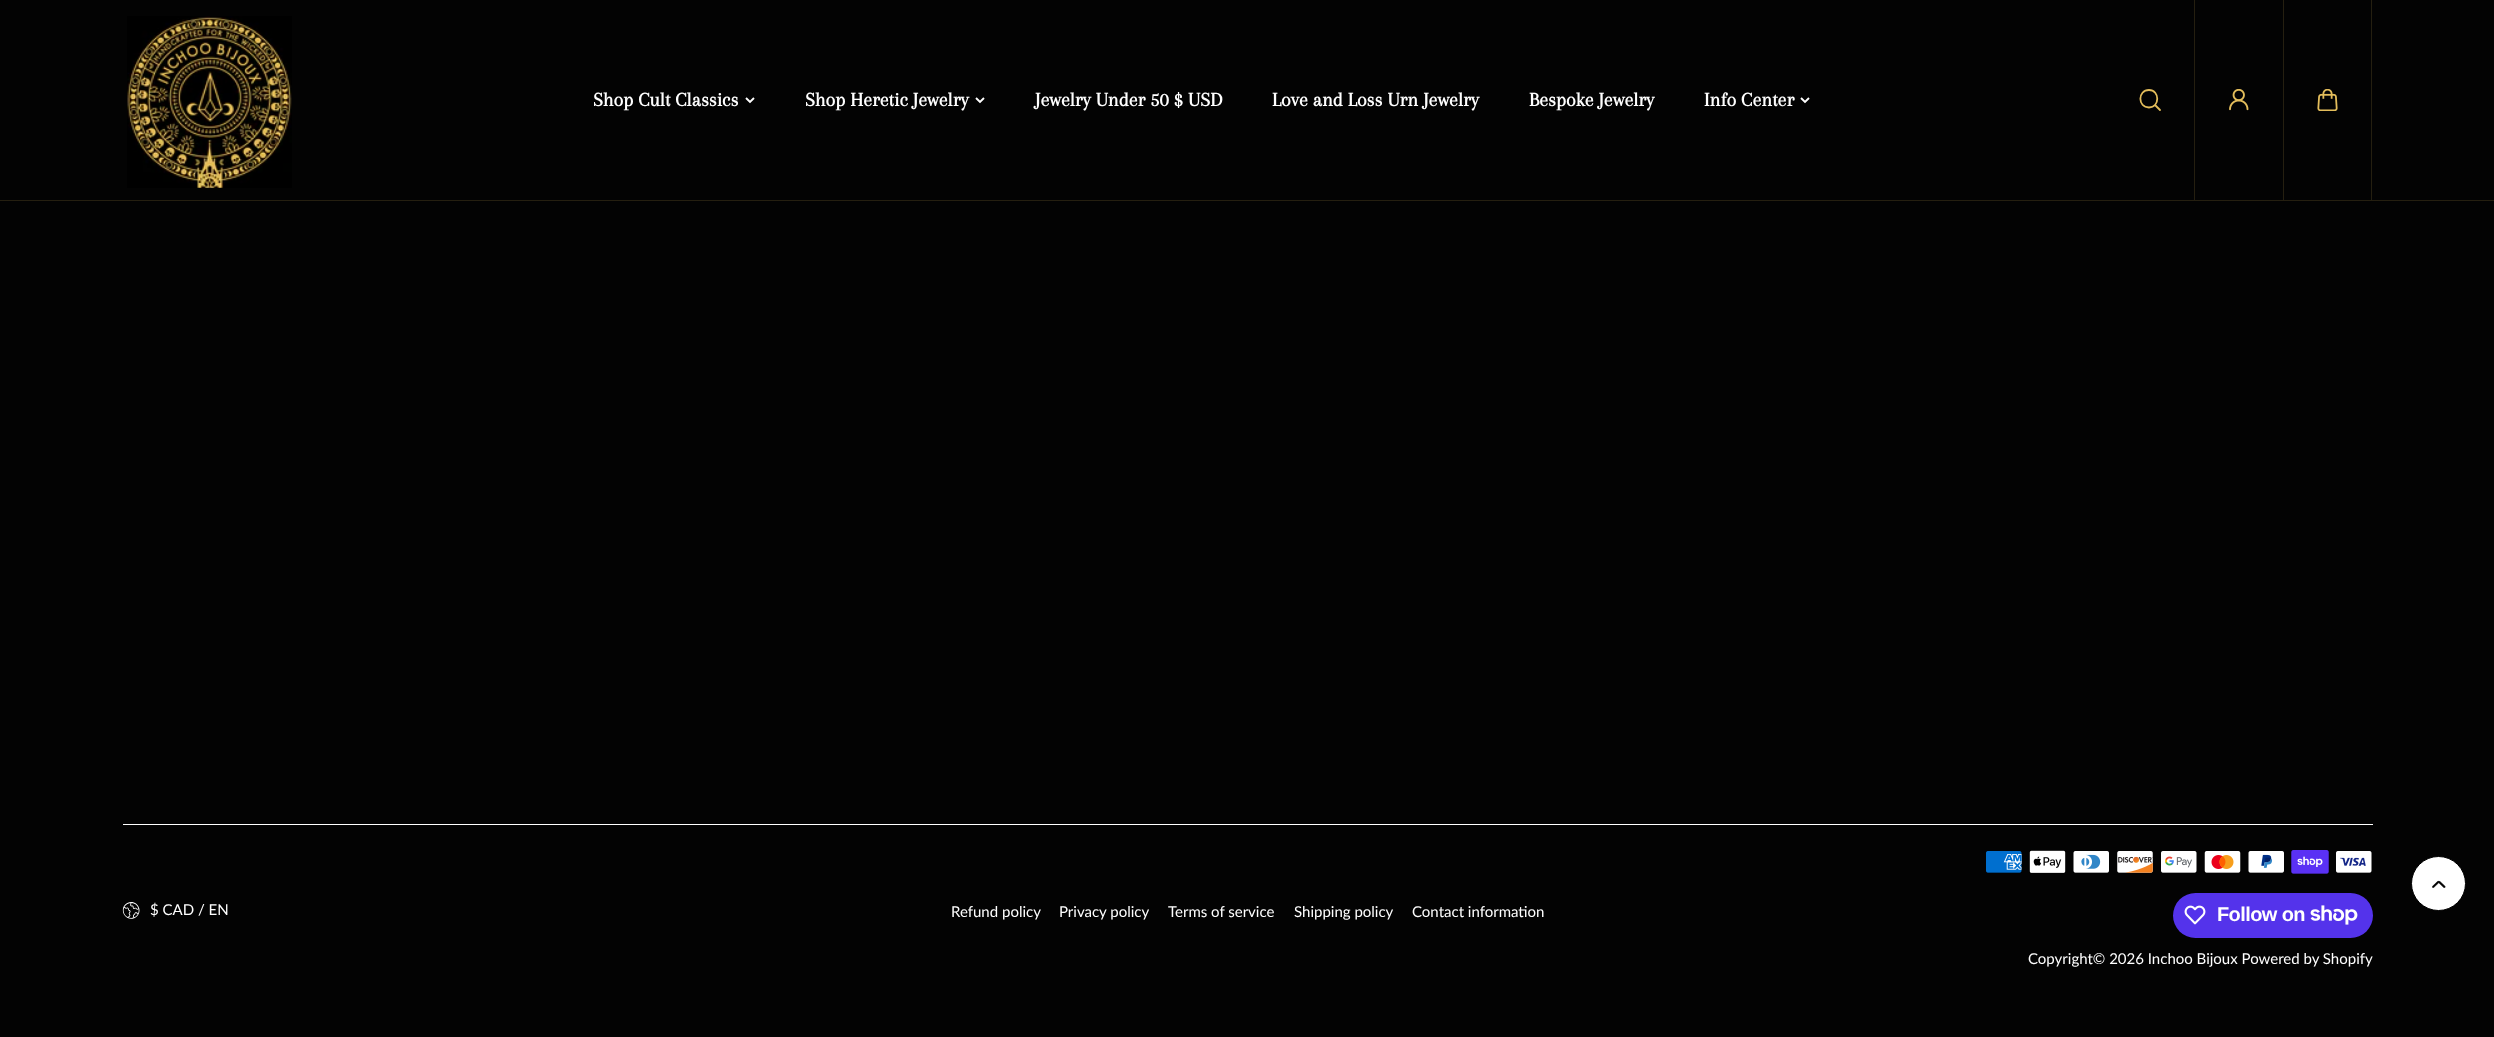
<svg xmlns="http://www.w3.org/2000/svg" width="2494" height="1037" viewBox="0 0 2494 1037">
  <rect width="100%" height="100%" fill="#030303"/>
  <rect x="0" y="200" width="2494" height="1" fill="#251f10"/>
  <image x="127" y="16" width="165" height="172" href="img1.png"/>
  <text x="593" y="106" font-family="Arapey" font-size="20" font-weight="bold" fill="#ffffff">Shop Cult Classics</text>
  <path d="M746 98L750 102L754 98" fill="none" stroke="#ffffff" stroke-width="1.9"/>
  <text x="805" y="106" font-family="Arapey" font-size="20" font-weight="bold" fill="#ffffff">Shop Heretic Jewelry</text>
  <path d="M976 98L980 102L984 98" fill="none" stroke="#ffffff" stroke-width="1.9"/>
  <text x="1035" y="106" font-family="Arapey" font-size="20" font-weight="bold" fill="#ffffff">Jewelry Under 50 $ USD</text>
  <text x="1272" y="106" font-family="Arapey" font-size="20" font-weight="bold" fill="#ffffff">Love and Loss Urn Jewelry</text>
  <text x="1529" y="106" font-family="Arapey" font-size="20" font-weight="bold" fill="#ffffff">Bespoke Jewelry</text>
  <text x="1704" y="106" font-family="Arapey" font-size="20" font-weight="bold" fill="#ffffff">Info Center</text>
  <path d="M1801 98L1805 102L1809 98" fill="none" stroke="#ffffff" stroke-width="1.9"/>
  <rect x="2194" y="0" width="1" height="200" fill="#251f10"/>
  <path d="M2149 107.5C2160 107.5 2160 90 2149 90C2137.5 90 2137.5 107.5 2149 107.5ZM2155 105L2160 110" fill="none" stroke="#e3bd5b" stroke-width="1.8" stroke-linecap="round" stroke-linejoin="round"/>
  <rect x="2283" y="0" width="1" height="200" fill="#251f10"/>
  <image x="2229" y="89" width="20" height="22" href="img2.png"/>
  <rect x="2371" y="0" width="1" height="200" fill="#251f10"/>
  <image x="2317" y="89" width="21" height="22" href="img3.png"/>
  <rect x="123" y="824" width="2250" height="1" fill="#ffffff"/>
  <image x="122" y="902" width="18" height="17" href="img4.png"/>
  <text x="150" y="915" font-family="Lato" font-size="15" fill="#ffffff">$ CAD / EN</text>
  <text x="951" y="917" font-family="Lato" font-size="15" fill="#ffffff">Refund policy</text>
  <text x="1059" y="917" font-family="Lato" font-size="15" fill="#ffffff">Privacy policy</text>
  <text x="1168" y="917" font-family="Lato" font-size="15" fill="#ffffff">Terms of service</text>
  <text x="1294" y="917" font-family="Lato" font-size="15" fill="#ffffff">Shipping policy</text>
  <text x="1412" y="917" font-family="Lato" font-size="15" fill="#ffffff">Contact information</text>
  <image x="1986" y="851" width="36" height="22" href="img5.png"/>
  <image x="2029" y="850" width="37" height="23" href="img6.png"/>
  <image x="2073" y="851" width="36" height="22" href="img7.png"/>
  <image x="2117" y="851" width="36" height="22" href="img8.png"/>
  <image x="2161" y="851" width="36" height="22" href="img9.png"/>
  <image x="2204" y="851" width="37" height="22" href="img10.png"/>
  <image x="2248" y="851" width="36" height="22" href="img11.png"/>
  <image x="2291" y="850" width="38" height="24" href="img12.png"/>
  <image x="2336" y="851" width="36" height="22" href="img13.png"/>
  <rect x="2173" y="893" width="200" height="45" rx="22.5" fill="#5433eb"/>
  <image x="2184" y="905" width="22" height="20" href="img14.png"/>
  <text x="2217" y="921" font-family="Liberation Sans" font-size="20" font-weight="bold" letter-spacing="-0.6" fill="#ffffff">Follow on</text>
  <image x="2310" y="905" width="48" height="20" href="img15.png"/>
  <text x="2028" y="964" font-family="Lato" font-size="15" fill="#ffffff">Copyright© 2026 Inchoo Bijoux Powered by Shopify</text>
  <circle cx="2438.5" cy="883.5" r="27" fill="#ffffff" stroke="#000000"/>
  <image x="2432" y="880" width="14" height="8" href="img16.png"/>
</svg>
